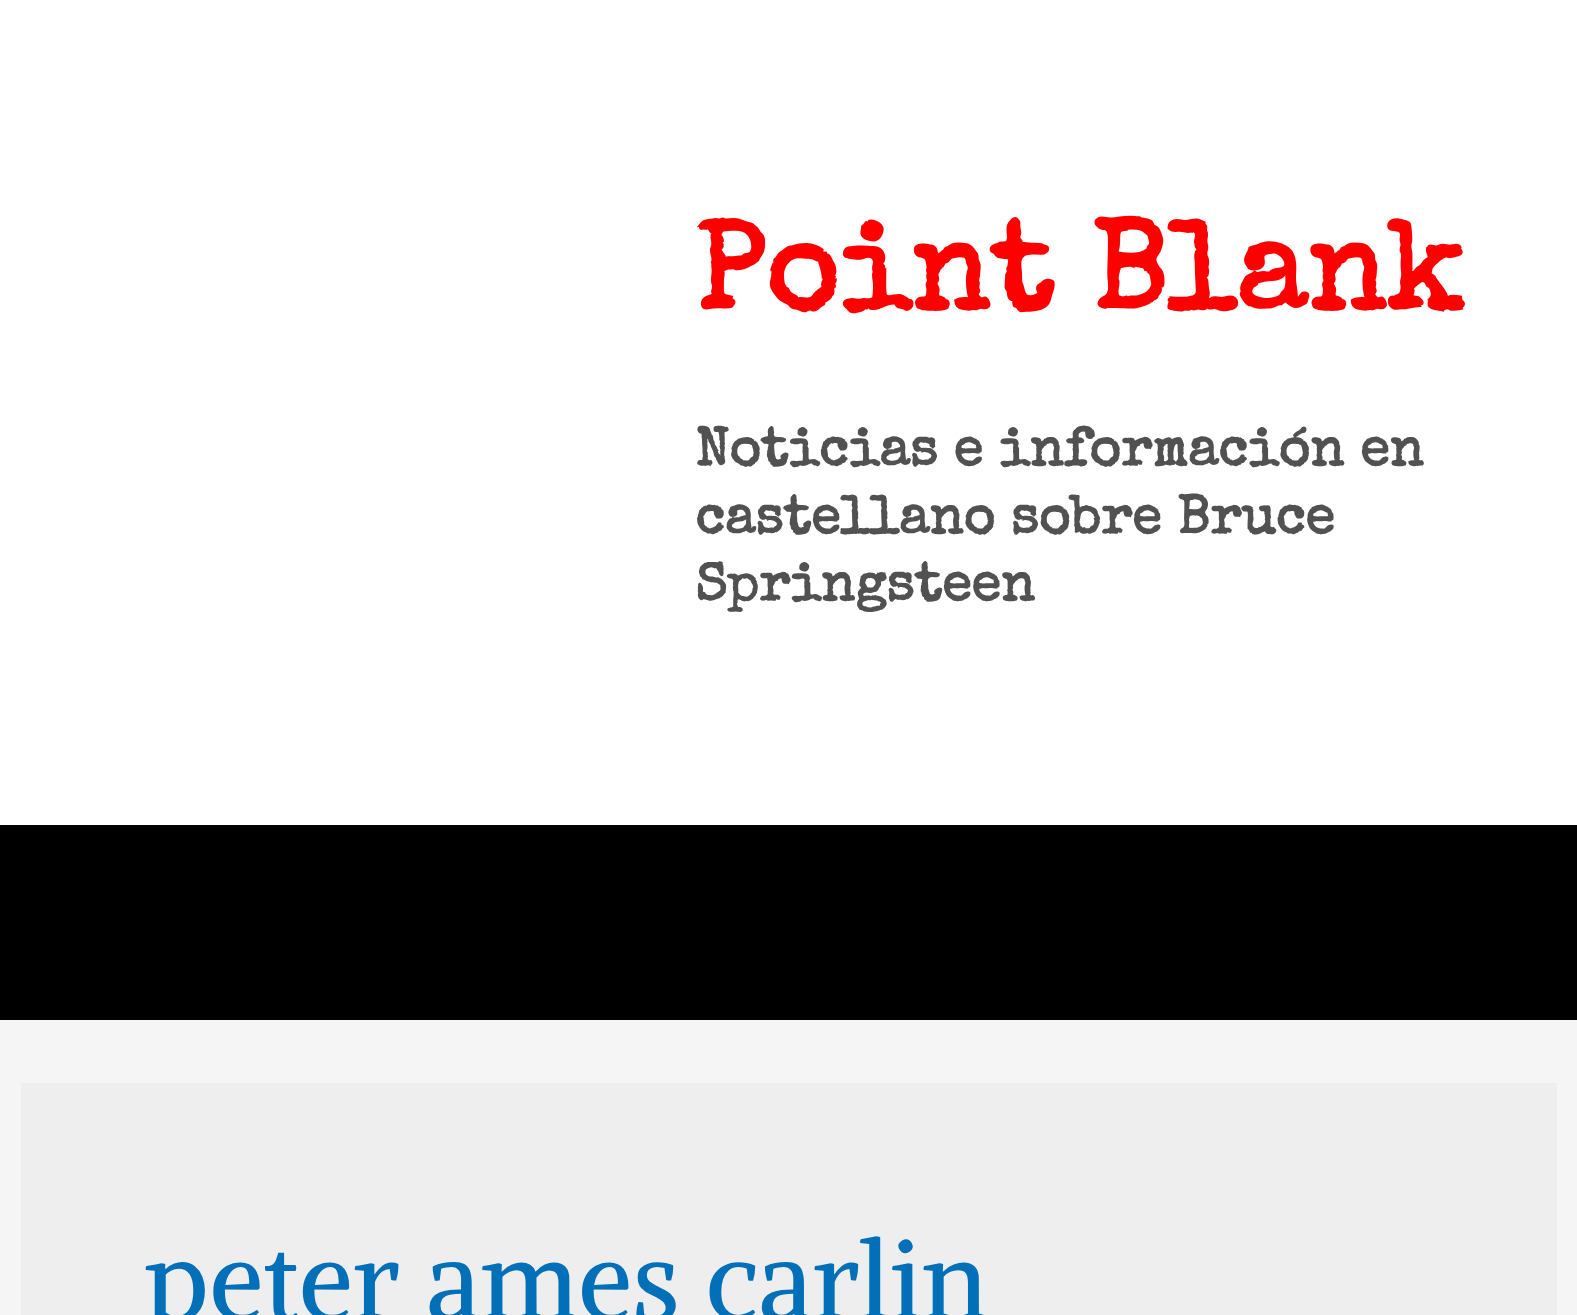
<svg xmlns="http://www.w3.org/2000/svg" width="1577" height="1315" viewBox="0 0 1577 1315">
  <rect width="100%" height="100%" fill="#f5f5f5"/>
  <rect x="0" y="0" width="1577" height="825" fill="#ffffff"/>
  <text x="695" y="308" font-family="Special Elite" font-size="126" font-weight="bold" fill="#ff0000">Point Blank</text>
  <text x="695" y="465" font-family="Special Elite" font-size="54" font-weight="bold" fill="#515151">Noticias e información en</text>
  <text x="695" y="533" font-family="Special Elite" font-size="54" font-weight="bold" fill="#515151">castellano sobre Bruce</text>
  <text x="695" y="600" font-family="Special Elite" font-size="54" font-weight="bold" fill="#515151">Springsteen</text>
  <rect x="0" y="825" width="1577" height="195" fill="#000000"/>
  <rect x="21" y="1083" width="1536" height="232" fill="#eeeeee"/>
  <text x="145" y="1319" font-family="Alike" font-size="109.5" fill="#0170b9">peter ames carlin</text>
</svg>
